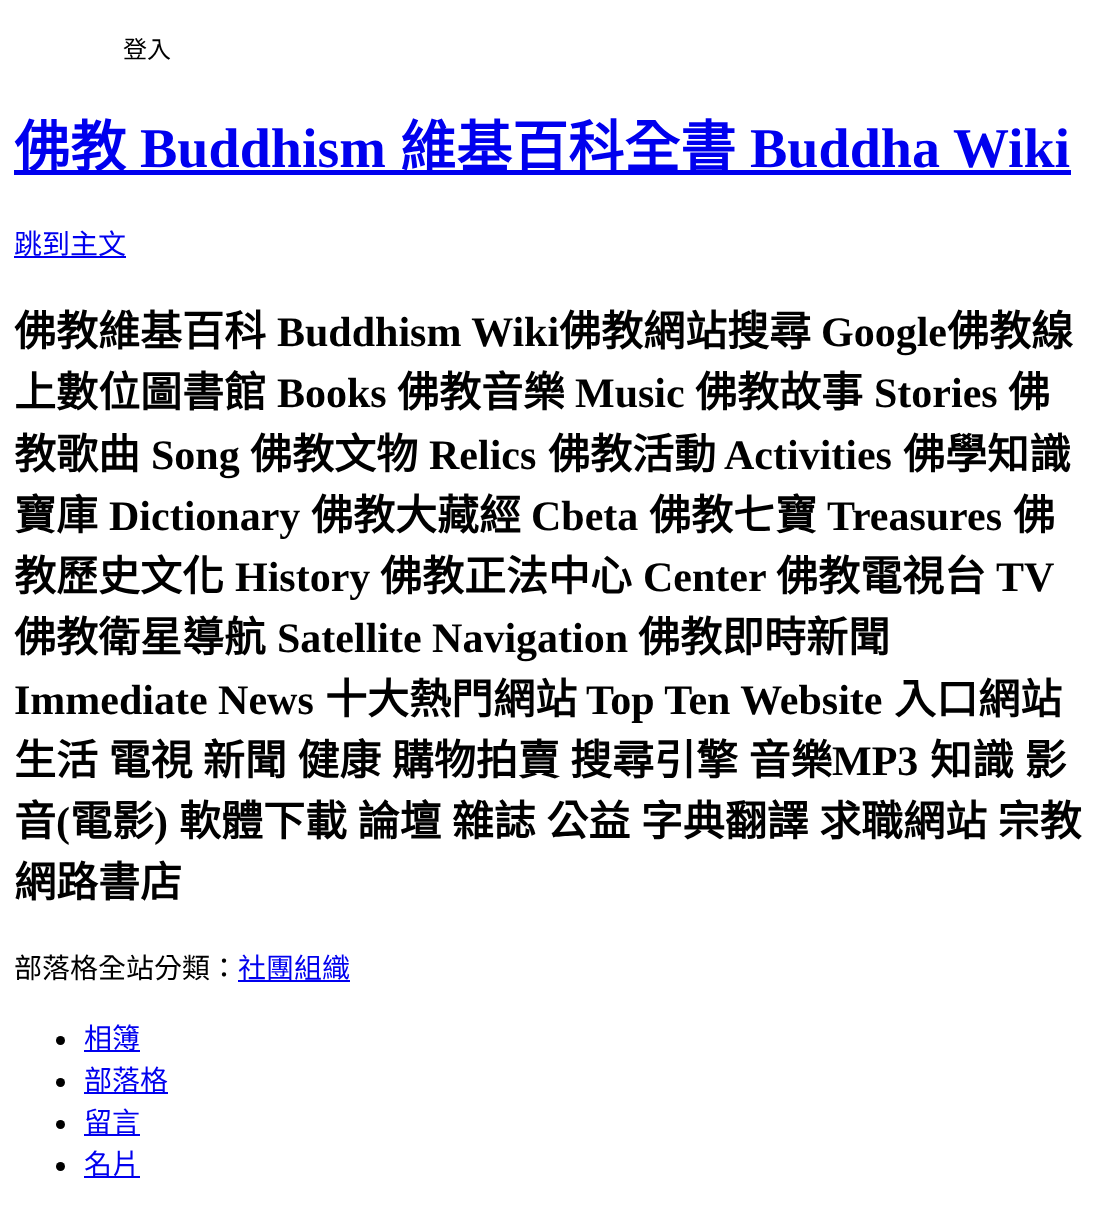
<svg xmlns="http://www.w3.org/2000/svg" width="1097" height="1205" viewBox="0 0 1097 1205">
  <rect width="100%" height="100%" fill="#ffffff"/>
  <text x="123" y="58" font-family="Noto Sans CJK TC" font-size="24" fill="#000000">登入</text>
  <rect x="14" y="170" width="1057" height="5" fill="#0000ee"/>
  <text x="14" y="167" font-family="Noto Sans CJK TC" font-size="56" font-weight="bold" fill="#0000ee">佛教</text>
  <text x="140" y="167" font-family="Liberation Serif" font-size="56" font-weight="bold" fill="#0000ee">Buddhism</text>
  <text x="400" y="167" font-family="Noto Sans CJK TC" font-size="56" font-weight="bold" fill="#0000ee">維基百科全書</text>
  <text x="750" y="167" font-family="Liberation Serif" font-size="56" font-weight="bold" fill="#0000ee">Buddha Wiki</text>
  <rect x="14" y="256" width="112" height="2" fill="#0000ee"/>
  <text x="14" y="254" font-family="Noto Sans CJK TC" font-size="28" fill="#0000ee">跳到主文</text>
  <text x="14" y="346" font-family="Noto Sans CJK TC" font-size="42" font-weight="bold" fill="#000000">佛教維基百科</text>
  <text x="277" y="346" font-family="Liberation Serif" font-size="42" font-weight="bold" fill="#000000">Buddhism Wiki</text>
  <text x="559" y="346" font-family="Noto Sans CJK TC" font-size="42" font-weight="bold" fill="#000000">佛教網站搜尋</text>
  <text x="821" y="346" font-family="Liberation Serif" font-size="42" font-weight="bold" fill="#000000">Google</text>
  <text x="947" y="346" font-family="Noto Sans CJK TC" font-size="42" font-weight="bold" fill="#000000">佛教線</text>
  <text x="14" y="407" font-family="Noto Sans CJK TC" font-size="42" font-weight="bold" fill="#000000">上數位圖書館</text>
  <text x="277" y="407" font-family="Liberation Serif" font-size="42" font-weight="bold" fill="#000000">Books</text>
  <text x="397" y="407" font-family="Noto Sans CJK TC" font-size="42" font-weight="bold" fill="#000000">佛教音樂</text>
  <text x="575" y="407" font-family="Liberation Serif" font-size="42" font-weight="bold" fill="#000000">Music</text>
  <text x="695" y="407" font-family="Noto Sans CJK TC" font-size="42" font-weight="bold" fill="#000000">佛教故事</text>
  <text x="874" y="407" font-family="Liberation Serif" font-size="42" font-weight="bold" fill="#000000">Stories</text>
  <text x="1008" y="407" font-family="Noto Sans CJK TC" font-size="42" font-weight="bold" fill="#000000">佛</text>
  <text x="14" y="469" font-family="Noto Sans CJK TC" font-size="42" font-weight="bold" fill="#000000">教歌曲</text>
  <text x="151" y="469" font-family="Liberation Serif" font-size="42" font-weight="bold" fill="#000000">Song</text>
  <text x="250" y="469" font-family="Noto Sans CJK TC" font-size="42" font-weight="bold" fill="#000000">佛教文物</text>
  <text x="429" y="469" font-family="Liberation Serif" font-size="42" font-weight="bold" fill="#000000">Relics</text>
  <text x="548" y="469" font-family="Noto Sans CJK TC" font-size="42" font-weight="bold" fill="#000000">佛教活動</text>
  <text x="724" y="469" font-family="Liberation Serif" font-size="42" font-weight="bold" fill="#000000">Activities</text>
  <text x="903" y="469" font-family="Noto Sans CJK TC" font-size="42" font-weight="bold" fill="#000000">佛學知識</text>
  <text x="14" y="530" font-family="Noto Sans CJK TC" font-size="42" font-weight="bold" fill="#000000">寶庫</text>
  <text x="109" y="530" font-family="Liberation Serif" font-size="42" font-weight="bold" fill="#000000">Dictionary</text>
  <text x="311" y="530" font-family="Noto Sans CJK TC" font-size="42" font-weight="bold" fill="#000000">佛教大藏經</text>
  <text x="531" y="530" font-family="Liberation Serif" font-size="42" font-weight="bold" fill="#000000">Cbeta</text>
  <text x="649" y="530" font-family="Noto Sans CJK TC" font-size="42" font-weight="bold" fill="#000000">佛教七寶</text>
  <text x="827" y="530" font-family="Liberation Serif" font-size="42" font-weight="bold" fill="#000000">Treasures</text>
  <text x="1013" y="530" font-family="Noto Sans CJK TC" font-size="42" font-weight="bold" fill="#000000">佛</text>
  <text x="14" y="591" font-family="Noto Sans CJK TC" font-size="42" font-weight="bold" fill="#000000">教歷史文化</text>
  <text x="235" y="591" font-family="Liberation Serif" font-size="42" font-weight="bold" fill="#000000">History</text>
  <text x="380" y="591" font-family="Noto Sans CJK TC" font-size="42" font-weight="bold" fill="#000000">佛教正法中心</text>
  <text x="643" y="591" font-family="Liberation Serif" font-size="42" font-weight="bold" fill="#000000">Center</text>
  <text x="776" y="591" font-family="Noto Sans CJK TC" font-size="42" font-weight="bold" fill="#000000">佛教電視台</text>
  <text x="996" y="591" font-family="Liberation Serif" font-size="42" font-weight="bold" fill="#000000">TV</text>
  <text x="14" y="652" font-family="Noto Sans CJK TC" font-size="42" font-weight="bold" fill="#000000">佛教衛星導航</text>
  <text x="277" y="652" font-family="Liberation Serif" font-size="42" font-weight="bold" fill="#000000">Satellite Navigation</text>
  <text x="638" y="652" font-family="Noto Sans CJK TC" font-size="42" font-weight="bold" fill="#000000">佛教即時新聞</text>
  <text x="14" y="714" font-family="Liberation Serif" font-size="42" font-weight="bold" fill="#000000">Immediate News</text>
  <text x="325" y="714" font-family="Noto Sans CJK TC" font-size="42" font-weight="bold" fill="#000000">十大熱門網站</text>
  <text x="586" y="714" font-family="Liberation Serif" font-size="42" font-weight="bold" fill="#000000">Top Ten Website</text>
  <text x="894" y="714" font-family="Noto Sans CJK TC" font-size="42" font-weight="bold" fill="#000000">入口網站</text>
  <text x="14" y="775" word-spacing="1" font-family="Noto Sans CJK TC" font-size="42" font-weight="bold" fill="#000000">生活 電視 新聞 健康 購物拍賣 搜尋引擎 音樂</text>
  <text x="832" y="775" font-family="Liberation Serif" font-size="42" font-weight="bold" fill="#000000">MP3</text>
  <text x="930" y="775" word-spacing="1" font-family="Noto Sans CJK TC" font-size="42" font-weight="bold" fill="#000000">知識 影</text>
  <text x="14" y="836" font-family="Noto Sans CJK TC" font-size="42" font-weight="bold" fill="#000000">音</text>
  <text x="56" y="836" font-family="Liberation Serif" font-size="42" font-weight="bold" fill="#000000">(</text>
  <text x="70" y="836" font-family="Noto Sans CJK TC" font-size="42" font-weight="bold" fill="#000000">電影</text>
  <text x="154" y="836" font-family="Liberation Serif" font-size="42" font-weight="bold" fill="#000000">)</text>
  <text x="179" y="836" word-spacing="1" font-family="Noto Sans CJK TC" font-size="42" font-weight="bold" fill="#000000">軟體下載 論壇 雜誌 公益 字典翻譯 求職網站 宗教</text>
  <text x="14" y="897" font-family="Noto Sans CJK TC" font-size="42" font-weight="bold" fill="#000000">網路書店</text>
  <text x="14" y="978" font-family="Noto Sans CJK TC" font-size="28" fill="#000000">部落格全站分類：</text>
  <rect x="238" y="980" width="112" height="2" fill="#0000ee"/>
  <text x="238" y="978" font-family="Noto Sans CJK TC" font-size="28" fill="#0000ee">社團組織</text>
  <circle cx="60.5" cy="1040.5" r="4.5" fill="#000000"/>
  <rect x="84" y="1050" width="56" height="2" fill="#0000ee"/>
  <text x="84" y="1048" font-family="Noto Sans CJK TC" font-size="28" fill="#0000ee">相簿</text>
  <circle cx="60.5" cy="1082.5" r="4.5" fill="#000000"/>
  <rect x="84" y="1092" width="84" height="2" fill="#0000ee"/>
  <text x="84" y="1090" font-family="Noto Sans CJK TC" font-size="28" fill="#0000ee">部落格</text>
  <circle cx="60.5" cy="1124.5" r="4.5" fill="#000000"/>
  <rect x="84" y="1134" width="56" height="2" fill="#0000ee"/>
  <text x="84" y="1132" font-family="Noto Sans CJK TC" font-size="28" fill="#0000ee">留言</text>
  <circle cx="60.5" cy="1166.5" r="4.5" fill="#000000"/>
  <rect x="84" y="1176" width="56" height="2" fill="#0000ee"/>
  <text x="84" y="1174" font-family="Noto Sans CJK TC" font-size="28" fill="#0000ee">名片</text>
</svg>
